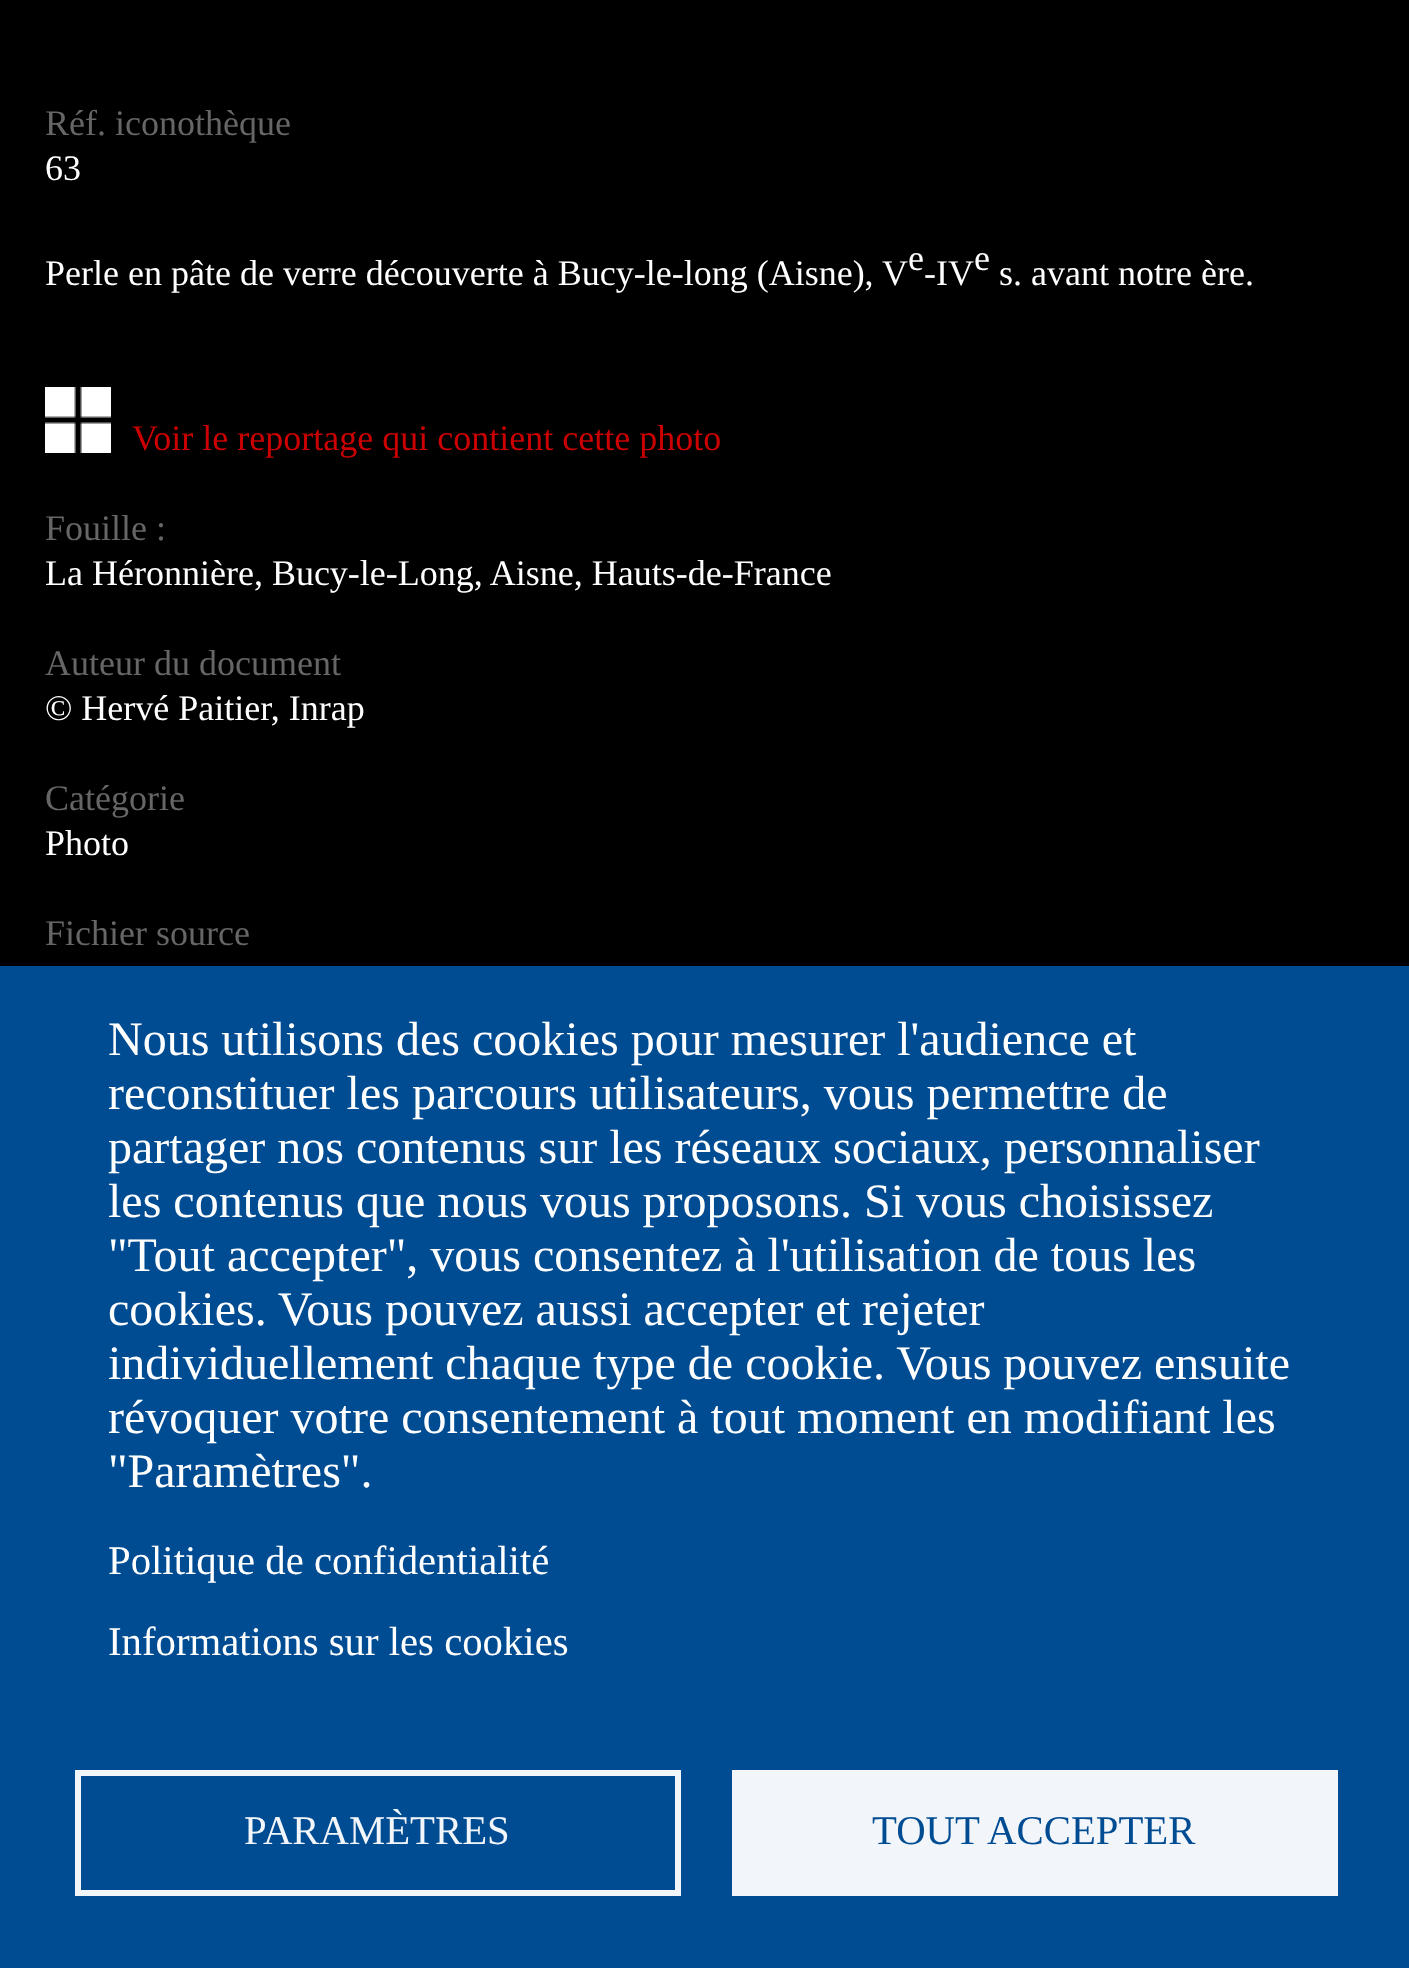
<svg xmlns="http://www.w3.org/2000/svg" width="1409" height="1968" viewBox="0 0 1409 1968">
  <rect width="100%" height="100%" fill="#000000"/>
  <text x="45" y="135" font-family="Liberation Serif" font-size="36" fill="#666666">Réf. iconothèque</text>
  <text x="45" y="180" font-family="Liberation Serif" font-size="36" fill="#ffffff">63</text>
  <text x="45" y="285" font-family="Liberation Serif" font-size="36" fill="#ffffff">Perle en pâte de verre découverte à Bucy-le-long (Aisne), V</text>
  <text x="908" y="270" font-family="Liberation Serif" font-size="36" fill="#ffffff">e</text>
  <text x="924" y="285" font-family="Liberation Serif" font-size="36" fill="#ffffff">-IV</text>
  <text x="974" y="270" font-family="Liberation Serif" font-size="36" fill="#ffffff">e</text>
  <text x="999" y="285" font-family="Liberation Serif" font-size="36" fill="#ffffff">s. avant notre ère.</text>
  <image x="45" y="387" width="66" height="66" href="img1.png"/>
  <text x="132" y="450" font-family="Liberation Serif" font-size="36" fill="#cc0000">Voir le reportage qui contient cette photo</text>
  <text x="45" y="540" font-family="Liberation Serif" font-size="36" fill="#666666">Fouille :</text>
  <text x="45" y="585" font-family="Liberation Serif" font-size="36" fill="#ffffff">La Héronnière, Bucy-le-Long, Aisne, Hauts-de-France</text>
  <text x="45" y="675" font-family="Liberation Serif" font-size="36" fill="#666666">Auteur du document</text>
  <text x="45" y="720" font-family="Liberation Serif" font-size="36" fill="#ffffff">© Hervé Paitier, Inrap</text>
  <text x="45" y="810" font-family="Liberation Serif" font-size="36" fill="#666666">Catégorie</text>
  <text x="45" y="855" font-family="Liberation Serif" font-size="36" fill="#ffffff">Photo</text>
  <text x="45" y="945" font-family="Liberation Serif" font-size="36" fill="#666666">Fichier source</text>
  <rect x="0" y="966" width="1409" height="1002" fill="#004c93"/>
  <text x="108" y="1055" font-family="Liberation Serif" font-size="48" fill="#ffffff">Nous utilisons des cookies pour mesurer l'audience et</text>
  <text x="108" y="1109" font-family="Liberation Serif" font-size="48" fill="#ffffff">reconstituer les parcours utilisateurs, vous permettre de</text>
  <text x="108" y="1163" font-family="Liberation Serif" font-size="48" fill="#ffffff">partager nos contenus sur les réseaux sociaux, personnaliser</text>
  <text x="108" y="1217" font-family="Liberation Serif" font-size="48" fill="#ffffff">les contenus que nous vous proposons. Si vous choisissez</text>
  <text x="108" y="1271" font-family="Liberation Serif" font-size="48" fill="#ffffff">"Tout accepter", vous consentez à l'utilisation de tous les</text>
  <text x="108" y="1325" font-family="Liberation Serif" font-size="48" fill="#ffffff">cookies. Vous pouvez aussi accepter et rejeter</text>
  <text x="108" y="1379" font-family="Liberation Serif" font-size="48" fill="#ffffff">individuellement chaque type de cookie. Vous pouvez ensuite</text>
  <text x="108" y="1433" font-family="Liberation Serif" font-size="48" fill="#ffffff">révoquer votre consentement à tout moment en modifiant les</text>
  <text x="108" y="1487" font-family="Liberation Serif" font-size="48" fill="#ffffff">"Paramètres".</text>
  <text x="108" y="1574" font-family="Liberation Serif" font-size="40.75" fill="#ffffff">Politique de confidentialité</text>
  <text x="108" y="1655" font-family="Liberation Serif" font-size="40.75" fill="#ffffff">Informations sur les cookies</text>
  <rect x="78" y="1773" width="600" height="120" fill="none" stroke="#f2f6fa" stroke-width="6"/>
  <text x="244" y="1844" font-family="Liberation Serif" font-size="40.75" fill="#f2f6fa">PARAMÈTRES</text>
  <rect x="732" y="1770" width="606" height="126" fill="#f2f6fa"/>
  <text x="872" y="1844" font-family="Liberation Serif" font-size="40.75" fill="#004c93">TOUT ACCEPTER</text>
</svg>
